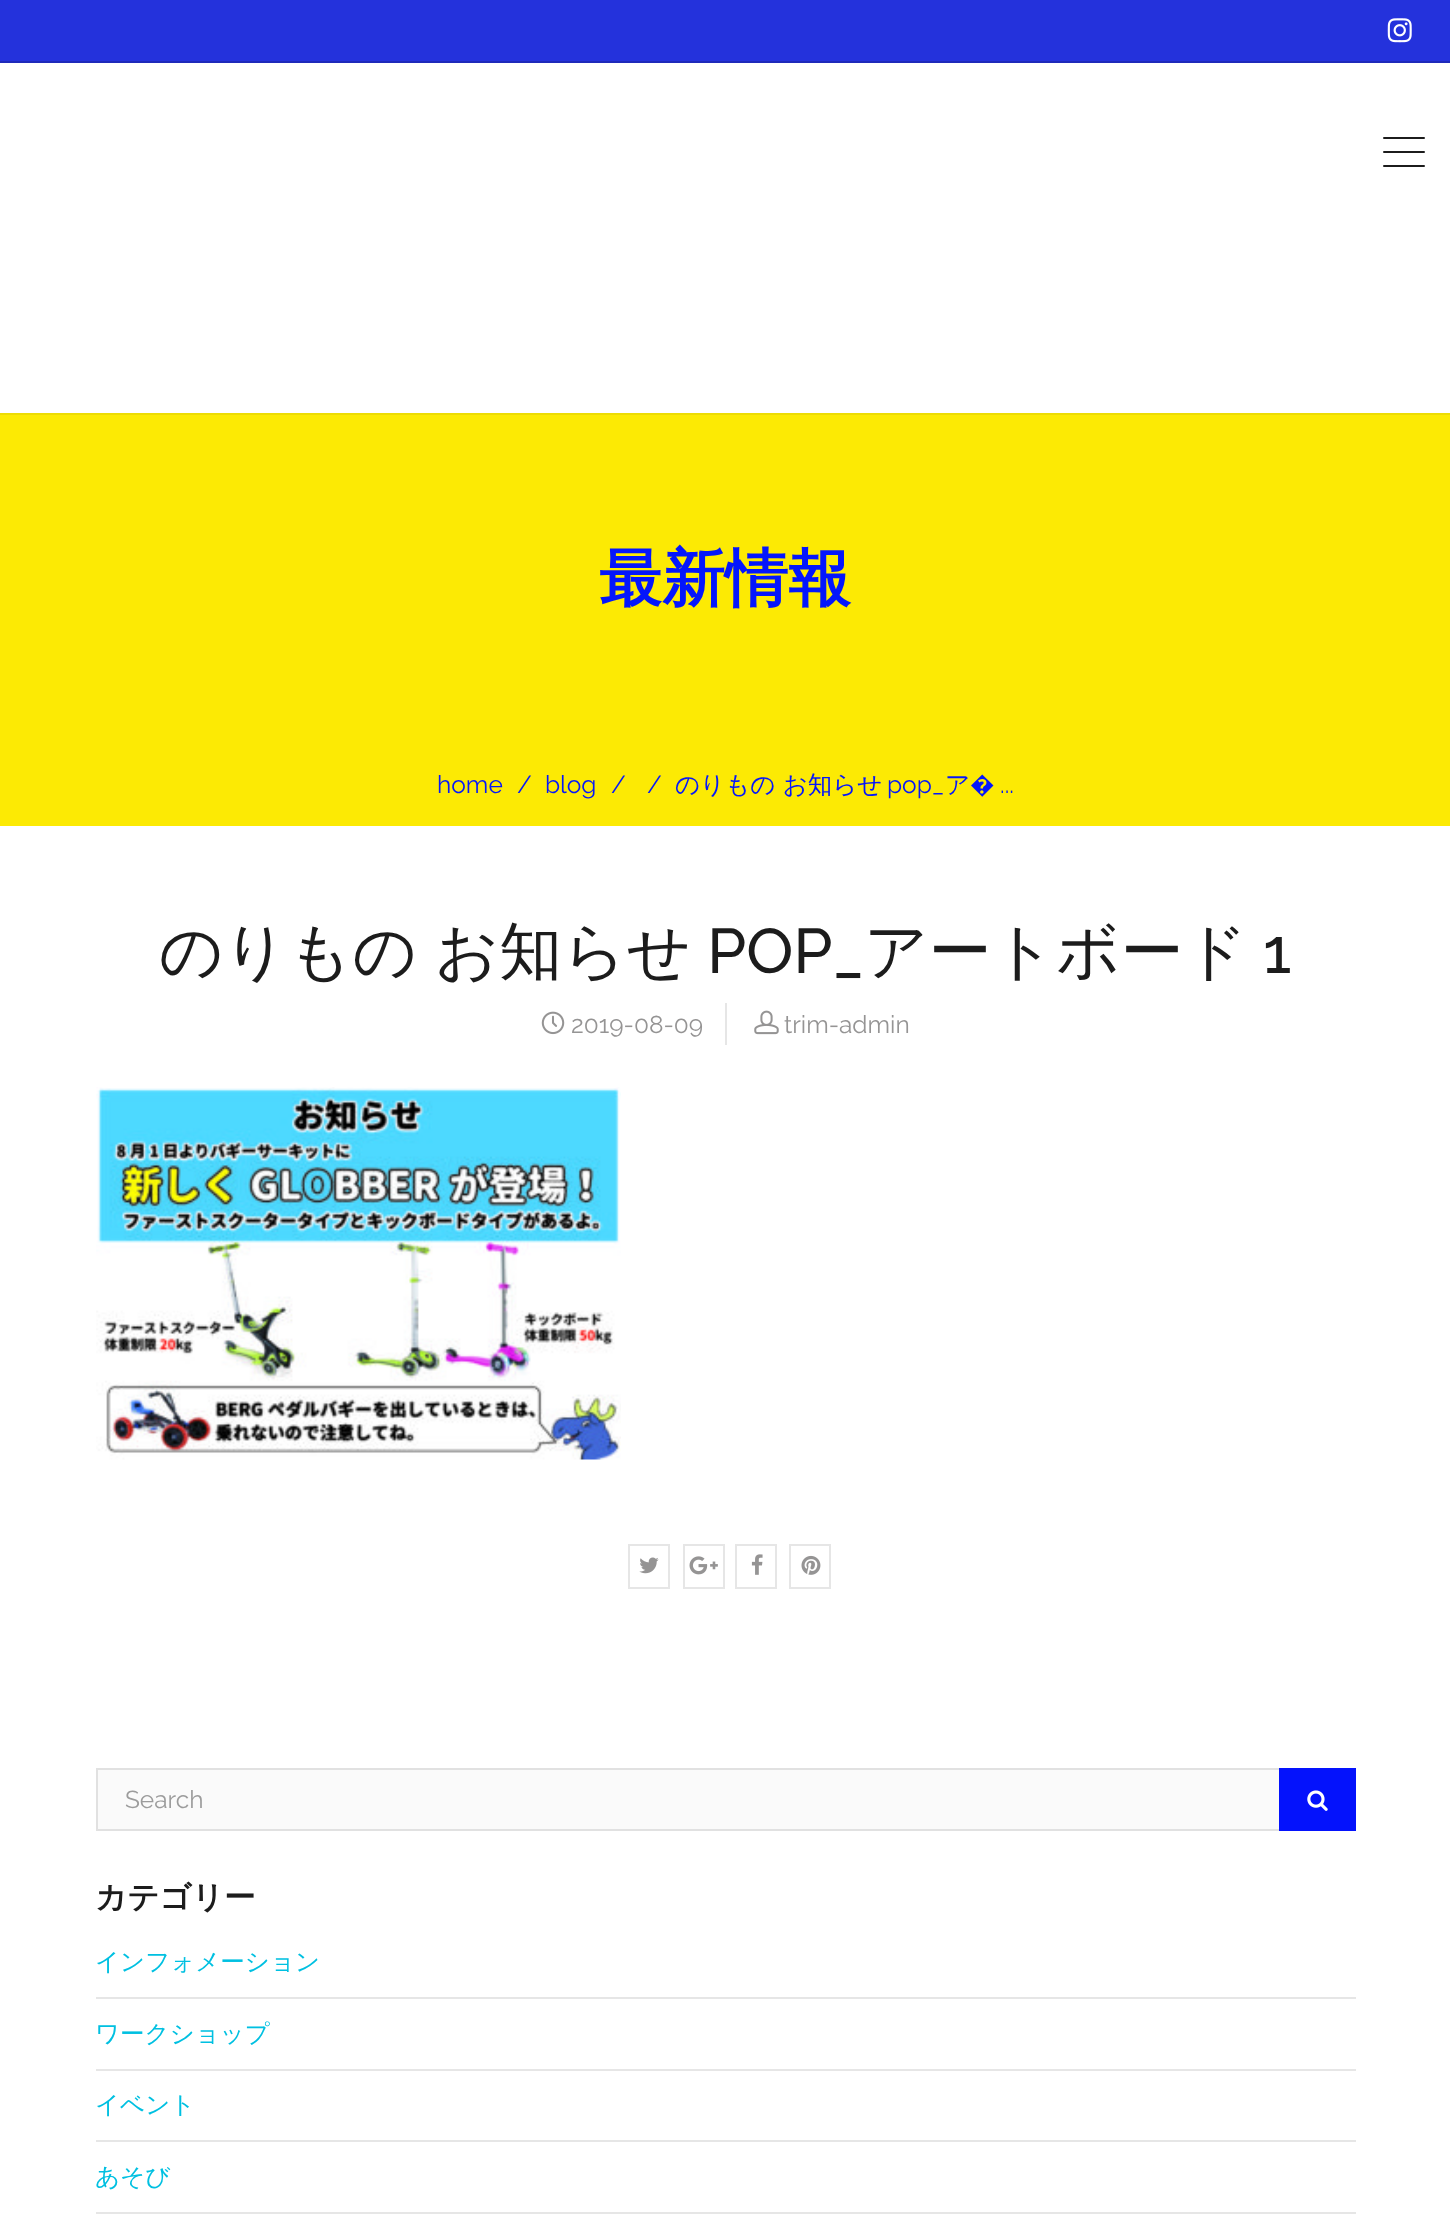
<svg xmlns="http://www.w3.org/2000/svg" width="1450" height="2228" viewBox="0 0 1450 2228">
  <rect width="100%" height="100%" fill="#ffffff"/>
  <rect x="0" y="0" width="1450" height="61" fill="#2432dc"/>
  <image x="1387" y="18" width="25" height="25" href="img1.png"/>
  <path d="M0 61V63H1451V411V61Z" fill="#1e2aba"/>
  <path d="M0 413V415H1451V65V413Z" fill="#eddc04"/>
  <rect x="1383" y="137" width="42" height="2" rx="1" fill="#1c1c1c"/>
  <rect x="1383" y="151" width="42" height="2" rx="1" fill="#1c1c1c"/>
  <rect x="1383" y="165" width="42" height="2" rx="1" fill="#1c1c1c"/>
  <rect x="0" y="415" width="1450" height="411" fill="#fcea04"/>
  <text x="599" y="600" font-family="WenQuanYi Zen Hei" font-size="63" font-weight="bold" fill="#0416fc">最新情報</text>
  <text x="437" y="793" font-family="Raleway" font-size="24.5" fill="#0416fc">home</text>
  <text x="517" y="793" font-family="Raleway" font-size="24.5" fill="#0416fc">/</text>
  <text x="545" y="793" font-family="Raleway" font-size="24.5" fill="#0416fc">blog</text>
  <text x="611" y="793" font-family="Raleway" font-size="24.5" fill="#0416fc">/</text>
  <text x="647" y="793" font-family="Raleway" font-size="24.5" fill="#0416fc">/</text>
  <text x="675" y="793" font-family="WenQuanYi Zen Hei" font-size="24.5" font-weight="500" fill="#0416fc">のりもの お知らせ</text>
  <text x="887" y="793" font-family="Raleway" font-size="24.5" fill="#0416fc">pop_</text>
  <text x="945" y="793" font-family="WenQuanYi Zen Hei" font-size="24.5" font-weight="500" fill="#0416fc">ア</text>
  <text x="970" y="793" font-family="Noto Sans" font-size="24.5" fill="#0416fc">�</text>
  <text x="1000" y="793" font-family="Raleway" font-size="24.5" fill="#0416fc">...</text>
  <text x="159" y="973" word-spacing="-1" font-family="WenQuanYi Zen Hei" font-size="63" font-weight="500" fill="#1c1c1c">のりもの お知らせ</text>
  <text x="707" y="973" font-family="Raleway" font-size="63" font-weight="500" fill="#1c1c1c">POP_</text>
  <text x="864" y="973" font-family="WenQuanYi Zen Hei" font-size="63" font-weight="500" fill="#1c1c1c">アートボード</text>
  <text x="1263" y="973" font-family="Raleway" font-size="63" font-weight="500" fill="#1c1c1c">1</text>
  <rect x="725" y="1003" width="2" height="42" fill="#e6e6e6"/>
  <image x="541" y="1011" width="24" height="24" href="img2.png"/>
  <text x="571" y="1033" font-family="Raleway" font-size="24.5" fill="#959494">2019-08-09</text>
  <image x="754" y="1010" width="25" height="25" href="img3.png"/>
  <text x="784" y="1033" font-family="Raleway" font-size="24.5" fill="#959494">trim-admin</text>
  <image x="96" y="1087" width="525" height="373" href="img4.png"/>
  <rect x="629" y="1545" width="40" height="43" fill="none" stroke="#e6e6e6" stroke-width="2"/>
  <image x="639" y="1557" width="20" height="17" href="img5.png"/>
  <rect x="684" y="1545" width="40" height="43" fill="none" stroke="#e6e6e6" stroke-width="2"/>
  <image x="689" y="1556" width="29" height="19" href="img6.png"/>
  <rect x="736" y="1545" width="40" height="43" fill="none" stroke="#e6e6e6" stroke-width="2"/>
  <image x="751" y="1554" width="12" height="21" href="img7.png"/>
  <rect x="790" y="1545" width="40" height="43" fill="none" stroke="#e6e6e6" stroke-width="2"/>
  <image x="801" y="1555" width="20" height="20" href="img8.png"/>
  <rect x="97" y="1769" width="1183" height="61" fill="#fafafa" stroke="#e1e1e1" stroke-width="2"/>
  <text x="125" y="1808" font-family="Raleway" font-size="24.5" fill="#9c9c9c">Search</text>
  <rect x="1279" y="1768" width="77" height="63" fill="#0412fc"/>
  <image x="1307" y="1790" width="21" height="21" href="img9.png"/>
  <text x="95" y="1908" font-family="WenQuanYi Zen Hei" font-size="31.5" font-weight="bold" fill="#1c1c1c">カテゴリー</text>
  <rect x="96" y="1997" width="1260" height="2" fill="#e6e6e6"/>
  <text x="95" y="1970" font-family="WenQuanYi Zen Hei" font-size="24.5" font-weight="500" fill="#00c0e1">インフォメーション</text>
  <rect x="96" y="2069" width="1260" height="2" fill="#e6e6e6"/>
  <text x="95" y="2042" font-family="WenQuanYi Zen Hei" font-size="24.5" font-weight="500" fill="#00c0e1">ワークショップ</text>
  <rect x="96" y="2140" width="1260" height="2" fill="#e6e6e6"/>
  <text x="95" y="2113" font-family="WenQuanYi Zen Hei" font-size="24.5" font-weight="500" fill="#00c0e1">イベント</text>
  <rect x="96" y="2212" width="1260" height="2" fill="#e6e6e6"/>
  <text x="95" y="2185" font-family="WenQuanYi Zen Hei" font-size="24.5" font-weight="500" fill="#00c0e1">あそび</text>
</svg>
